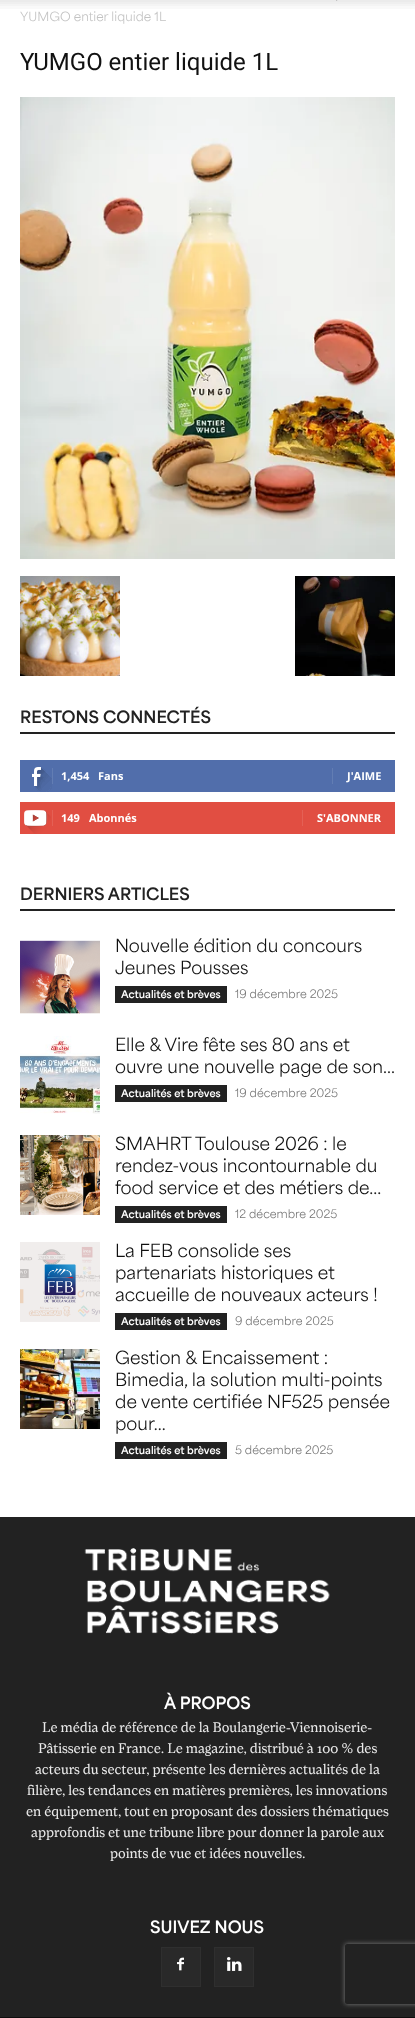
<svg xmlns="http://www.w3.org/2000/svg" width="415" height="2018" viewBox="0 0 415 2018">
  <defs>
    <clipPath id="clip1"><path d="M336 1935H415V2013H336ZM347 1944H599C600 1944 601 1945 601 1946V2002C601 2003 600 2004 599 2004H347C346 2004 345 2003 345 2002V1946C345 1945 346 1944 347 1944Z" clip-rule="evenodd"/></clipPath>
    <filter id="blur1" x="-50%" y="-200%" width="200%" height="500%"><feGaussianBlur stdDeviation="2.5"/></filter>
  </defs>
  <rect width="100%" height="100%" fill="#ffffff"/>
  <image x="336" y="0" width="2" height="1" href="img2.png"/>
  <image x="0" y="0" width="415" height="9" href="img1.png"/>
  <text x="20" y="21" font-family="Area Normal" font-size="12" fill="#c3c3c3">YUMGO entier liquide 1L</text>
  <text x="20" y="70" font-family="Roboto" font-size="24" fill="#111111">YUMGO entier liquide 1L</text>
  <image x="20" y="97" width="375" height="462" href="img3.png"/>
  <image x="20" y="576" width="100" height="100" href="img4.png"/>
  <image x="295" y="576" width="100" height="100" href="img5.png"/>
  <rect x="20" y="732" width="375" height="2" fill="#222222"/>
  <text x="20" y="723" font-family="Area Normal" font-size="16" font-weight="bold" fill="#222222">RESTONS CONNECTÉS</text>
  <rect x="20" y="760" width="375" height="32" fill="#516eab"/>
  <image x="32" y="767" width="20" height="25" href="img6.png"/>
  <rect x="52" y="768" width="1" height="16" fill="#627db3"/>
  <text x="61" y="780" font-family="Open Sans" font-size="11" font-weight="bold" fill="#ffffff">1,454</text>
  <text x="98" y="780" font-family="Open Sans" font-size="11" font-weight="bold" fill="#ffffff">Fans</text>
  <rect x="332" y="768" width="1" height="16" fill="#627db3"/>
  <text x="347" y="780" font-family="Open Sans" font-size="11" font-weight="bold" fill="#ffffff">J'AIME</text>
  <rect x="20" y="802" width="375" height="32" fill="#e14e42"/>
  <image x="24" y="810" width="27" height="24" href="img7.png"/>
  <rect x="52" y="810" width="1" height="16" fill="#e46055"/>
  <text x="61" y="822" font-family="Open Sans" font-size="11" font-weight="bold" fill="#ffffff">149</text>
  <text x="89" y="822" font-family="Open Sans" font-size="11" font-weight="bold" fill="#ffffff">Abonnés</text>
  <rect x="302" y="810" width="1" height="16" fill="#e46055"/>
  <text x="317" y="822" font-family="Open Sans" font-size="11" font-weight="bold" fill="#ffffff">S'ABONNER</text>
  <rect x="20" y="909" width="375" height="2" fill="#222222"/>
  <text x="20" y="900" font-family="Area Normal" font-size="16" font-weight="bold" fill="#222222">DERNIERS ARTICLES</text>
  <image x="20" y="940" width="80" height="74" href="img8.png"/>
  <text x="115" y="952" font-family="Area Normal" font-size="17" fill="#111111">Nouvelle édition du concours</text>
  <text x="115" y="974" font-family="Area Normal" font-size="17" fill="#111111">Jeunes Pousses</text>
  <rect x="115" y="986" width="112" height="17" fill="#222222"/>
  <text x="121" y="998" font-family="Area Normal" font-size="10" font-weight="bold" fill="#ffffff">Actualités et brèves</text>
  <text x="235" y="998" font-family="Area Normal" font-size="11" fill="#767676">19 décembre 2025</text>
  <image x="20" y="1036" width="80" height="78" href="img9.png"/>
  <text x="115" y="1051" font-family="Area Normal" font-size="17" fill="#111111">Elle &amp; Vire fête ses 80 ans et</text>
  <text x="115" y="1073" font-family="Area Normal" font-size="17" fill="#111111">ouvre une nouvelle page de son...</text>
  <rect x="115" y="1085" width="112" height="17" fill="#222222"/>
  <text x="121" y="1097" font-family="Area Normal" font-size="10" font-weight="bold" fill="#ffffff">Actualités et brèves</text>
  <text x="235" y="1097" font-family="Area Normal" font-size="11" fill="#767676">19 décembre 2025</text>
  <image x="20" y="1135" width="80" height="80" href="img10.png"/>
  <text x="115" y="1150" font-family="Area Normal" font-size="17" fill="#111111">SMAHRT Toulouse 2026 : le</text>
  <text x="115" y="1172" font-family="Area Normal" font-size="17" fill="#111111">rendez-vous incontournable du</text>
  <text x="115" y="1194" font-family="Area Normal" font-size="17" fill="#111111">food service et des métiers de...</text>
  <rect x="115" y="1206" width="112" height="17" fill="#222222"/>
  <text x="121" y="1218" font-family="Area Normal" font-size="10" font-weight="bold" fill="#ffffff">Actualités et brèves</text>
  <text x="235" y="1218" font-family="Area Normal" font-size="11" fill="#767676">12 décembre 2025</text>
  <image x="20" y="1242" width="80" height="80" href="img11.png"/>
  <text x="115" y="1257" font-family="Area Normal" font-size="17" fill="#111111">La FEB consolide ses</text>
  <text x="115" y="1279" font-family="Area Normal" font-size="17" fill="#111111">partenariats historiques et</text>
  <text x="115" y="1301" font-family="Area Normal" font-size="17" fill="#111111">accueille de nouveaux acteurs !</text>
  <rect x="115" y="1313" width="112" height="17" fill="#222222"/>
  <text x="121" y="1325" font-family="Area Normal" font-size="10" font-weight="bold" fill="#ffffff">Actualités et brèves</text>
  <text x="235" y="1325" font-family="Area Normal" font-size="11" fill="#767676">9 décembre 2025</text>
  <image x="20" y="1349" width="80" height="80" href="img12.png"/>
  <text x="115" y="1364" font-family="Area Normal" font-size="17" fill="#111111">Gestion &amp; Encaissement :</text>
  <text x="115" y="1386" font-family="Area Normal" font-size="17" fill="#111111">Bimedia, la solution multi-points</text>
  <text x="115" y="1408" font-family="Area Normal" font-size="17" fill="#111111">de vente certifiée NF525 pensée</text>
  <text x="115" y="1430" font-family="Area Normal" font-size="17" fill="#111111">pour...</text>
  <rect x="115" y="1442" width="112" height="17" fill="#222222"/>
  <text x="121" y="1454" font-family="Area Normal" font-size="10" font-weight="bold" fill="#ffffff">Actualités et brèves</text>
  <text x="235" y="1454" font-family="Area Normal" font-size="11" fill="#767676">5 décembre 2025</text>
  <rect x="0" y="1517" width="415" height="500" fill="#222222"/>
  <image x="84" y="1548" width="246" height="86" href="img13.png"/>
  <text x="164" y="1709" font-family="Area Normal" font-size="16" font-weight="bold" fill="#ffffff">À PROPOS</text>
  <text x="42" y="1732" font-family="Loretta" font-size="14" fill="#eaeaea">Le média de référence de la Boulangerie-Viennoiserie-</text>
  <text x="38" y="1753" font-family="Loretta" font-size="14" fill="#eaeaea">Pâtisserie en France. Le magazine, distribué à 100 % des</text>
  <text x="35" y="1774" font-family="Loretta" font-size="14" fill="#eaeaea">acteurs du secteur, présente les dernières actualités de la</text>
  <text x="27" y="1795" font-family="Loretta" font-size="14" fill="#eaeaea">filière, les tendances en matières premières, les innovations</text>
  <text x="26" y="1816" font-family="Loretta" font-size="14" fill="#eaeaea">en équipement, tout en proposant des dossiers thématiques</text>
  <text x="31" y="1837" font-family="Loretta" font-size="14" fill="#eaeaea">approfondis et une tribune libre pour donner la parole aux</text>
  <text x="110" y="1858" font-family="Loretta" font-size="14" fill="#eaeaea">points de vue et idées nouvelles.</text>
  <text x="150" y="1933" font-family="Area Normal" font-size="16" font-weight="bold" fill="#ffffff">SUIVEZ NOUS</text>
  <rect x="162" y="1948" width="38" height="38" fill="#292929"/>
  <image x="177" y="1957" width="7" height="14" href="img14.png"/>
  <rect x="161.5" y="1947.5" width="39" height="39" fill="none" stroke="#2f2f2f"/>
  <rect x="215" y="1948" width="38" height="38" fill="#292929"/>
  <image x="227" y="1957" width="15" height="14" href="img15.png"/>
  <rect x="214.5" y="1947.5" width="39" height="39" fill="none" stroke="#2f2f2f"/>
  <rect x="0" y="2017" width="415" height="1" fill="#0d0d0d"/>
  <g clip-path="url(#clip1)">
    <rect x="345" y="1944" width="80" height="60" rx="2" fill="#808080" filter="url(#blur1)"/>
  </g>
</svg>
